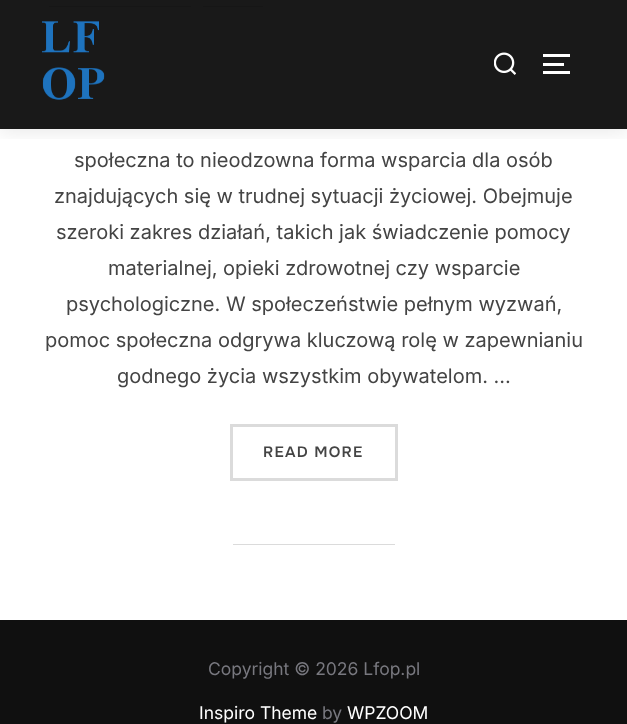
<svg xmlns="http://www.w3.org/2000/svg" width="627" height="724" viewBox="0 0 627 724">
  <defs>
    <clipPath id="clip1"><rect x="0" y="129" width="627" height="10"/></clipPath>
    <filter id="blur1" x="-50%" y="-200%" width="200%" height="500%"><feGaussianBlur stdDeviation="11"/></filter>
  </defs>
  <rect width="100%" height="100%" fill="#ffffff"/>
  <rect x="49" y="6" width="142" height="1" fill="#dbdbdb"/>
  <rect x="203" y="6" width="60" height="1" fill="#dbdbdb"/>
  <g clip-path="url(#clip1)">
    <rect x="-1" y="-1" width="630" height="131" fill="#000000" fill-opacity="0.1" filter="url(#blur1)"/>
  </g>
  <rect x="0" y="0" width="627" height="129" fill="#000000" fill-opacity="0.9"/>
  <image x="42" y="21" width="63" height="79" href="img1.png"/>
  <image x="494" y="52" width="22" height="23" href="img2.png"/>
  <rect x="543" y="54" width="27" height="3" fill="#ffffff"/>
  <rect x="543" y="63" width="21" height="3" fill="#ffffff"/>
  <rect x="543" y="71" width="27" height="3" fill="#ffffff"/>
  <text x="74" y="167" font-family="Inter" font-size="20" fill="#444444">społeczna to nieodzowna forma wsparcia dla osób</text>
  <text x="54" y="203" font-family="Inter" font-size="20" fill="#444444">znajdujących się w trudnej sytuacji życiowej. Obejmuje</text>
  <text x="56" y="239" font-family="Inter" font-size="20" fill="#444444">szeroki zakres działań, takich jak świadczenie pomocy</text>
  <text x="108" y="275" font-family="Inter" font-size="20" fill="#444444">materialnej, opieki zdrowotnej czy wsparcie</text>
  <text x="66" y="311" font-family="Inter" font-size="20" fill="#444444">psychologiczne. W społeczeństwie pełnym wyzwań,</text>
  <text x="45" y="347" font-family="Inter" font-size="20" fill="#444444">pomoc społeczna odgrywa kluczową rolę w zapewnianiu</text>
  <text x="117" y="383" font-family="Inter" font-size="20" fill="#444444">godnego życia wszystkim obywatelom. …</text>
  <rect x="231.5" y="425.5" width="165" height="54" fill="none" stroke="#dbdbdb" stroke-width="3"/>
  <text x="263" y="457" font-family="Onest" font-size="15" font-weight="600" letter-spacing="1.25" fill="#444444">READ MORE</text>
  <rect x="233" y="544" width="162" height="1" fill="#dbdbdb"/>
  <rect x="0" y="620" width="627" height="104" fill="#101010"/>
  <text x="208" y="675" font-family="Inter" font-size="17.5" fill="#78787f">Copyright © 2026 Lfop.pl</text>
  <text x="199" y="719" font-family="Inter" font-size="17.5" fill="#ffffff">Inspiro Theme</text>
  <text x="322" y="719" font-family="Inter" font-size="17.5" fill="#78787f">by</text>
  <text x="347" y="719" font-family="Inter" font-size="17.5" fill="#ffffff">WPZOOM</text>
</svg>
